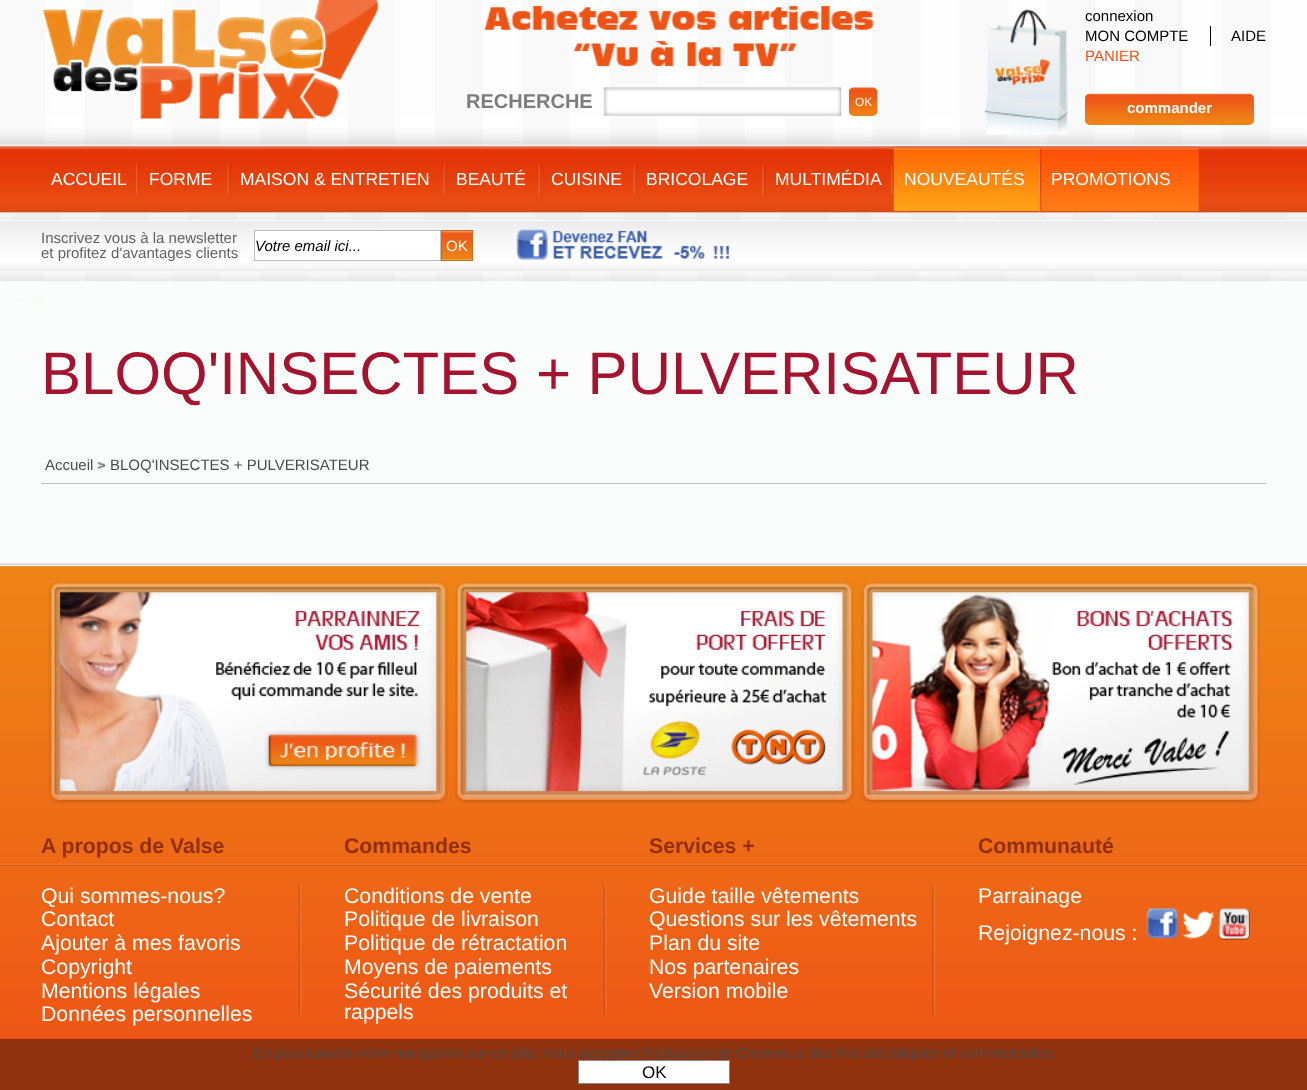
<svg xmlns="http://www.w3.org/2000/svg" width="1307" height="1090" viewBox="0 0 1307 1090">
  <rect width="100%" height="100%" fill="#ffffff"/>
  <image x="0" y="0" width="1307" height="563" href="img1.png"/>
  <image x="41" y="0" width="833" height="121" href="img4.png"/>
  <text x="466" y="108" font-family="Liberation Sans" font-size="20" font-weight="bold" fill="#7d7d7d">RECHERCHE</text>
  <image x="603" y="87" width="239" height="29" href="img2.png"/>
  <image x="848" y="87" width="30" height="29" href="img3.png"/>
  <text x="855" y="106" font-family="Liberation Sans" font-size="12" fill="#ffffff">OK</text>
  <image x="985" y="9" width="83" height="126" href="img5.png"/>
  <text x="1085" y="21" font-family="Liberation Sans" font-size="15" fill="#000000">connexion</text>
  <rect x="1210" y="26" width="1" height="20" fill="#000000"/>
  <text x="1085" y="41" font-family="Liberation Sans" font-size="15" fill="#000000">MON COMPTE</text>
  <text x="1231" y="41" font-family="Liberation Sans" font-size="15" fill="#000000">AIDE</text>
  <text x="1085" y="61" font-family="Liberation Sans" font-size="15" fill="#ee5316">PANIER</text>
  <rect x="1085" y="94" width="169" height="31" rx="5" fill="#ee8516"/>
  <image x="1085" y="93" width="169" height="32" href="img6.png"/>
  <text x="1127" y="113" font-family="Liberation Sans" font-size="15" font-weight="bold" fill="#ffffff">commander</text>
  <text x="51" y="185" font-family="Liberation Sans" font-size="17.5" fill="#ffffff">ACCUEIL</text>
  <image x="136" y="164" width="3" height="31" href="img7.png"/>
  <text x="149" y="185" font-family="Liberation Sans" font-size="17.5" fill="#ffffff">FORME</text>
  <image x="227" y="164" width="3" height="31" href="img8.png"/>
  <text x="240" y="185" font-family="Liberation Sans" font-size="17.5" fill="#ffffff">MAISON &amp; ENTRETIEN</text>
  <image x="443" y="164" width="4" height="31" href="img9.png"/>
  <text x="456" y="185" font-family="Liberation Sans" font-size="17.5" fill="#ffffff">BEAUTÉ</text>
  <image x="538" y="164" width="4" height="31" href="img9.png"/>
  <text x="551" y="185" font-family="Liberation Sans" font-size="17.5" fill="#ffffff">CUISINE</text>
  <image x="633" y="164" width="4" height="31" href="img9.png"/>
  <text x="646" y="185" font-family="Liberation Sans" font-size="17.5" fill="#ffffff">BRICOLAGE</text>
  <image x="762" y="164" width="3" height="31" href="img8.png"/>
  <text x="775" y="185" font-family="Liberation Sans" font-size="17.5" fill="#ffffff">MULTIMÉDIA</text>
  <image x="891" y="164" width="3" height="31" href="img7.png"/>
  <image x="893" y="146" width="146" height="65" href="img10.png"/>
  <text x="904" y="185" font-family="Liberation Sans" font-size="17.5" fill="#ffffff">NOUVEAUTÉS</text>
  <image x="1038" y="146" width="4" height="67" href="img11.png"/>
  <image x="1041" y="146" width="158" height="65" href="img12.png"/>
  <text x="1051" y="185" font-family="Liberation Sans" font-size="17.5" fill="#ffffff">PROMOTIONS</text>
  <text x="41" y="394" font-family="Liberation Sans" font-size="60" fill="#a5142e">BLOQ'INSECTES + PULVERISATEUR</text>
  <rect x="41" y="483" width="1225" height="1" fill="#bfbfbf"/>
  <image x="97" y="462" width="10" height="7" href="img13.png"/>
  <text x="45" y="470" font-family="Liberation Sans" font-size="15" fill="#4c4c4c">Accueil</text>
  <text x="110" y="470" font-family="Liberation Sans" font-size="15" fill="#4c4c4c">BLOQ'INSECTES + PULVERISATEUR</text>
  <text x="41" y="243" font-family="Liberation Sans" font-size="15" fill="#636363">Inscrivez vous à la newsletter</text>
  <text x="41" y="258" font-family="Liberation Sans" font-size="15" fill="#636363">et profitez d'avantages clients</text>
  <rect x="255" y="231" width="185" height="22" fill="#ffffff"/>
  <rect x="254.5" y="230.5" width="186" height="30" fill="none" stroke="#bfbfbf"/>
  <text x="255" y="251" font-family="Liberation Sans" font-size="15" font-style="italic" fill="#000000">Votre email ici...</text>
  <image x="442" y="231" width="30" height="29" href="img14.png"/>
  <rect x="441.5" y="230.5" width="31" height="30" fill="none" stroke="#c76f12"/>
  <text x="446" y="251" font-family="Liberation Sans" font-size="15" fill="#ffffff">OK</text>
  <image x="516" y="228" width="214" height="32" href="img15.png"/>
  <rect x="0" y="1035" width="1307" height="4" fill="#ee5316"/>
  <image x="0" y="563" width="1307" height="472" href="img16.png"/>
  <image x="48" y="582" width="400" height="222" href="img17.png"/>
  <image x="455" y="582" width="399" height="222" href="img18.png"/>
  <image x="861" y="582" width="399" height="222" href="img19.png"/>
  <text x="41" y="853" font-family="Liberation Sans" font-size="21.25" font-weight="bold" fill="#902f09">A propos de Valse</text>
  <text x="344" y="853" font-family="Liberation Sans" font-size="21.25" font-weight="bold" fill="#902f09">Commandes</text>
  <text x="649" y="853" font-family="Liberation Sans" font-size="21.25" font-weight="bold" fill="#902f09">Services +</text>
  <text x="978" y="853" font-family="Liberation Sans" font-size="21.25" font-weight="bold" fill="#902f09">Communauté</text>
  <image x="298" y="884" width="4" height="131" href="img20.png"/>
  <text x="41" y="903" font-family="Liberation Sans" font-size="21.25" fill="#ffffff">Qui sommes-nous?</text>
  <text x="41" y="926" font-family="Liberation Sans" font-size="21.25" fill="#ffffff">Contact</text>
  <text x="41" y="950" font-family="Liberation Sans" font-size="21.25" fill="#ffffff">Ajouter à mes favoris</text>
  <text x="41" y="974" font-family="Liberation Sans" font-size="21.25" fill="#ffffff">Copyright</text>
  <text x="41" y="998" font-family="Liberation Sans" font-size="21.25" fill="#ffffff">Mentions légales</text>
  <text x="41" y="1021" font-family="Liberation Sans" font-size="21.25" fill="#ffffff">Données personnelles</text>
  <image x="603" y="884" width="4" height="131" href="img20.png"/>
  <text x="344" y="903" font-family="Liberation Sans" font-size="21.25" fill="#ffffff">Conditions de vente</text>
  <text x="344" y="926" font-family="Liberation Sans" font-size="21.25" fill="#ffffff">Politique de livraison</text>
  <text x="344" y="950" font-family="Liberation Sans" font-size="21.25" fill="#ffffff">Politique de rétractation</text>
  <text x="344" y="974" font-family="Liberation Sans" font-size="21.25" fill="#ffffff">Moyens de paiements</text>
  <text x="344" y="998" font-family="Liberation Sans" font-size="21.25" fill="#ffffff">Sécurité des produits et</text>
  <text x="344" y="1019" font-family="Liberation Sans" font-size="21.25" fill="#ffffff">rappels</text>
  <image x="932" y="884" width="3" height="131" href="img21.png"/>
  <text x="649" y="903" font-family="Liberation Sans" font-size="21.25" fill="#ffffff">Guide taille vêtements</text>
  <text x="649" y="926" font-family="Liberation Sans" font-size="21.25" fill="#ffffff">Questions sur les vêtements</text>
  <text x="649" y="950" font-family="Liberation Sans" font-size="21.25" fill="#ffffff">Plan du site</text>
  <text x="649" y="974" font-family="Liberation Sans" font-size="21.25" fill="#ffffff">Nos partenaires</text>
  <text x="649" y="998" font-family="Liberation Sans" font-size="21.25" fill="#ffffff">Version mobile</text>
  <text x="978" y="903" font-family="Liberation Sans" font-size="21.25" fill="#ffffff">Parrainage</text>
  <text x="978" y="940" font-family="Liberation Sans" font-size="21.25" fill="#ffffff">Rejoignez-nous :</text>
  <image x="1146" y="908" width="32" height="31" href="img22.png"/>
  <image x="1182" y="910" width="32" height="29" href="img23.png"/>
  <image x="1218" y="908" width="32" height="32" href="img24.png"/>
  <rect x="0" y="1039" width="1307" height="51" fill="#8f320d"/>
  <text x="252" y="1058" font-family="Liberation Sans" font-size="15" fill="#4c4c4c">En poursuivant votre navigation sur ce site, vous acceptez l'utilisation de Cookies à des fins statistiques et commerciales.</text>
  <rect x="578.5" y="1060.5" width="151" height="23" fill="#ffffff" stroke="#888888"/>
  <text x="642" y="1078" font-family="Liberation Sans" font-size="17" fill="#000000">OK</text>
</svg>
